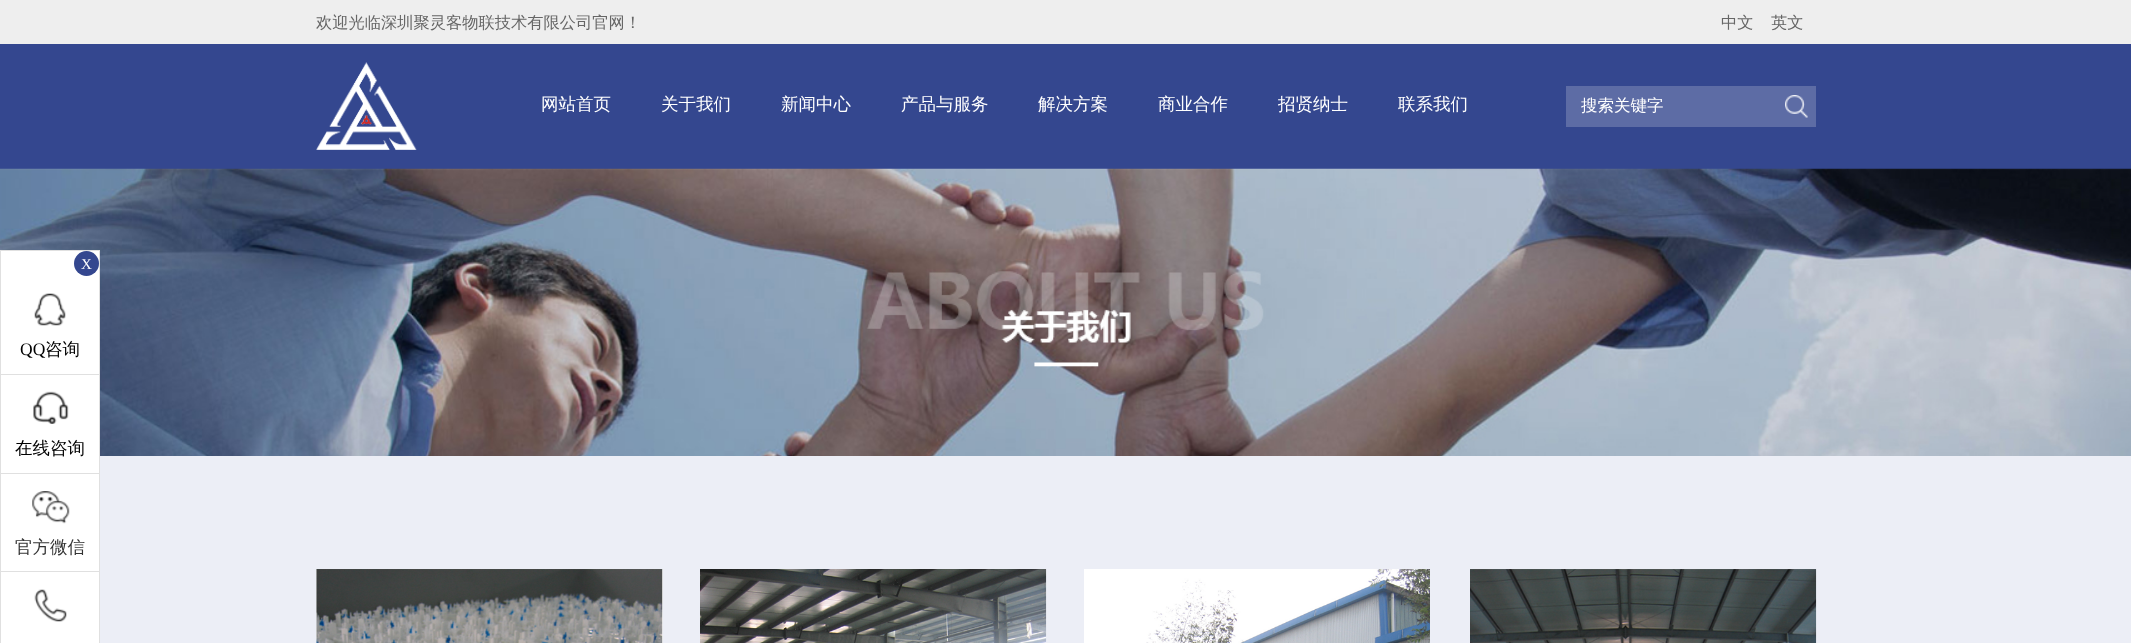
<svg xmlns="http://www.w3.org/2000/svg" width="2131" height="643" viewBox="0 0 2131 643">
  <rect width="100%" height="100%" fill="#eeeeee"/>
  <text x="316" y="28" font-family="WenQuanYi Zen Hei" font-size="16.25" font-weight="500" fill="#666666">欢迎光临深圳聚灵客物联技术有限公司官网！</text>
  <text x="1721" y="28" font-family="WenQuanYi Zen Hei" font-size="16.25" font-weight="500" fill="#666666">中文</text>
  <text x="1771" y="28" font-family="WenQuanYi Zen Hei" font-size="16.25" font-weight="500" fill="#666666">英文</text>
  <rect x="0" y="44" width="2131" height="125" fill="#34478f"/>
  <image x="316" y="62" width="101" height="88" href="img1.png"/>
  <text x="541" y="110" font-family="WenQuanYi Zen Hei" font-size="17.5" font-weight="500" fill="#ffffff">网站首页</text>
  <text x="661" y="110" font-family="WenQuanYi Zen Hei" font-size="17.5" font-weight="500" fill="#ffffff">关于我们</text>
  <text x="781" y="110" font-family="WenQuanYi Zen Hei" font-size="17.5" font-weight="500" fill="#ffffff">新闻中心</text>
  <text x="901" y="110" font-family="WenQuanYi Zen Hei" font-size="17.5" font-weight="500" fill="#ffffff">产品与服务</text>
  <text x="1038" y="110" font-family="WenQuanYi Zen Hei" font-size="17.5" font-weight="500" fill="#ffffff">解决方案</text>
  <text x="1158" y="110" font-family="WenQuanYi Zen Hei" font-size="17.5" font-weight="500" fill="#ffffff">商业合作</text>
  <text x="1278" y="110" font-family="WenQuanYi Zen Hei" font-size="17.5" font-weight="500" fill="#ffffff">招贤纳士</text>
  <text x="1398" y="110" font-family="WenQuanYi Zen Hei" font-size="17.5" font-weight="500" fill="#ffffff">联系我们</text>
  <rect x="1566" y="86" width="250" height="41" fill="#5d6ca5"/>
  <text x="1581" y="111" font-family="WenQuanYi Zen Hei" font-size="16.5" font-weight="500" fill="#ffffff">搜索关键字</text>
  <image x="1785" y="95" width="23" height="23" href="img2.png"/>
  <image x="0" y="168" width="2131" height="288" href="img3.png"/>
  <rect x="100" y="456" width="2031" height="187" fill="#eceef6"/>
  <rect x="316" y="569" width="347" height="74" fill="#ffffff"/>
  <image x="316" y="569" width="347" height="74" href="img4.png"/>
  <image x="700" y="569" width="347" height="74" href="img5.png"/>
  <rect x="1084" y="569" width="62" height="74" fill="#ffffff"/>
  <image x="1146" y="569" width="284" height="74" href="img6.png"/>
  <image x="1470" y="569" width="347" height="74" href="img7.png"/>
  <rect x="1" y="251" width="98" height="392" fill="#ffffff"/>
  <rect x="0" y="250" width="100" height="1" fill="#e0e0e0"/>
  <rect x="99" y="250" width="1" height="393" fill="#e0e0e0"/>
  <rect x="0" y="250" width="1" height="393" fill="#e0e0e0"/>
  <circle cx="86.5" cy="263.5" r="12.5" fill="#34478f"/>
  <text x="81" y="269" font-family="Liberation Serif" font-size="15" fill="#ffffff">X</text>
  <rect x="1" y="374" width="98" height="1" fill="#e0e0e0"/>
  <image x="34" y="293" width="32" height="33" href="img8.png"/>
  <text x="20" y="355" font-family="Liberation Serif" font-size="17.5" fill="#000000">QQ</text>
  <text x="45" y="355" font-family="WenQuanYi Zen Hei" font-size="17.5" font-weight="500" fill="#000000">咨询</text>
  <rect x="1" y="473" width="98" height="1" fill="#e0e0e0"/>
  <image x="33" y="391" width="36" height="33" href="img9.png"/>
  <text x="15" y="454" font-family="WenQuanYi Zen Hei" font-size="17.5" font-weight="500" fill="#000000">在线咨询</text>
  <rect x="1" y="571" width="98" height="1" fill="#e0e0e0"/>
  <image x="32" y="491" width="38" height="33" href="img10.png"/>
  <text x="15" y="553" font-family="WenQuanYi Zen Hei" font-size="17.5" font-weight="500" fill="#333333">官方微信</text>
  <image x="34" y="589" width="33" height="33" href="img11.png"/>
</svg>
